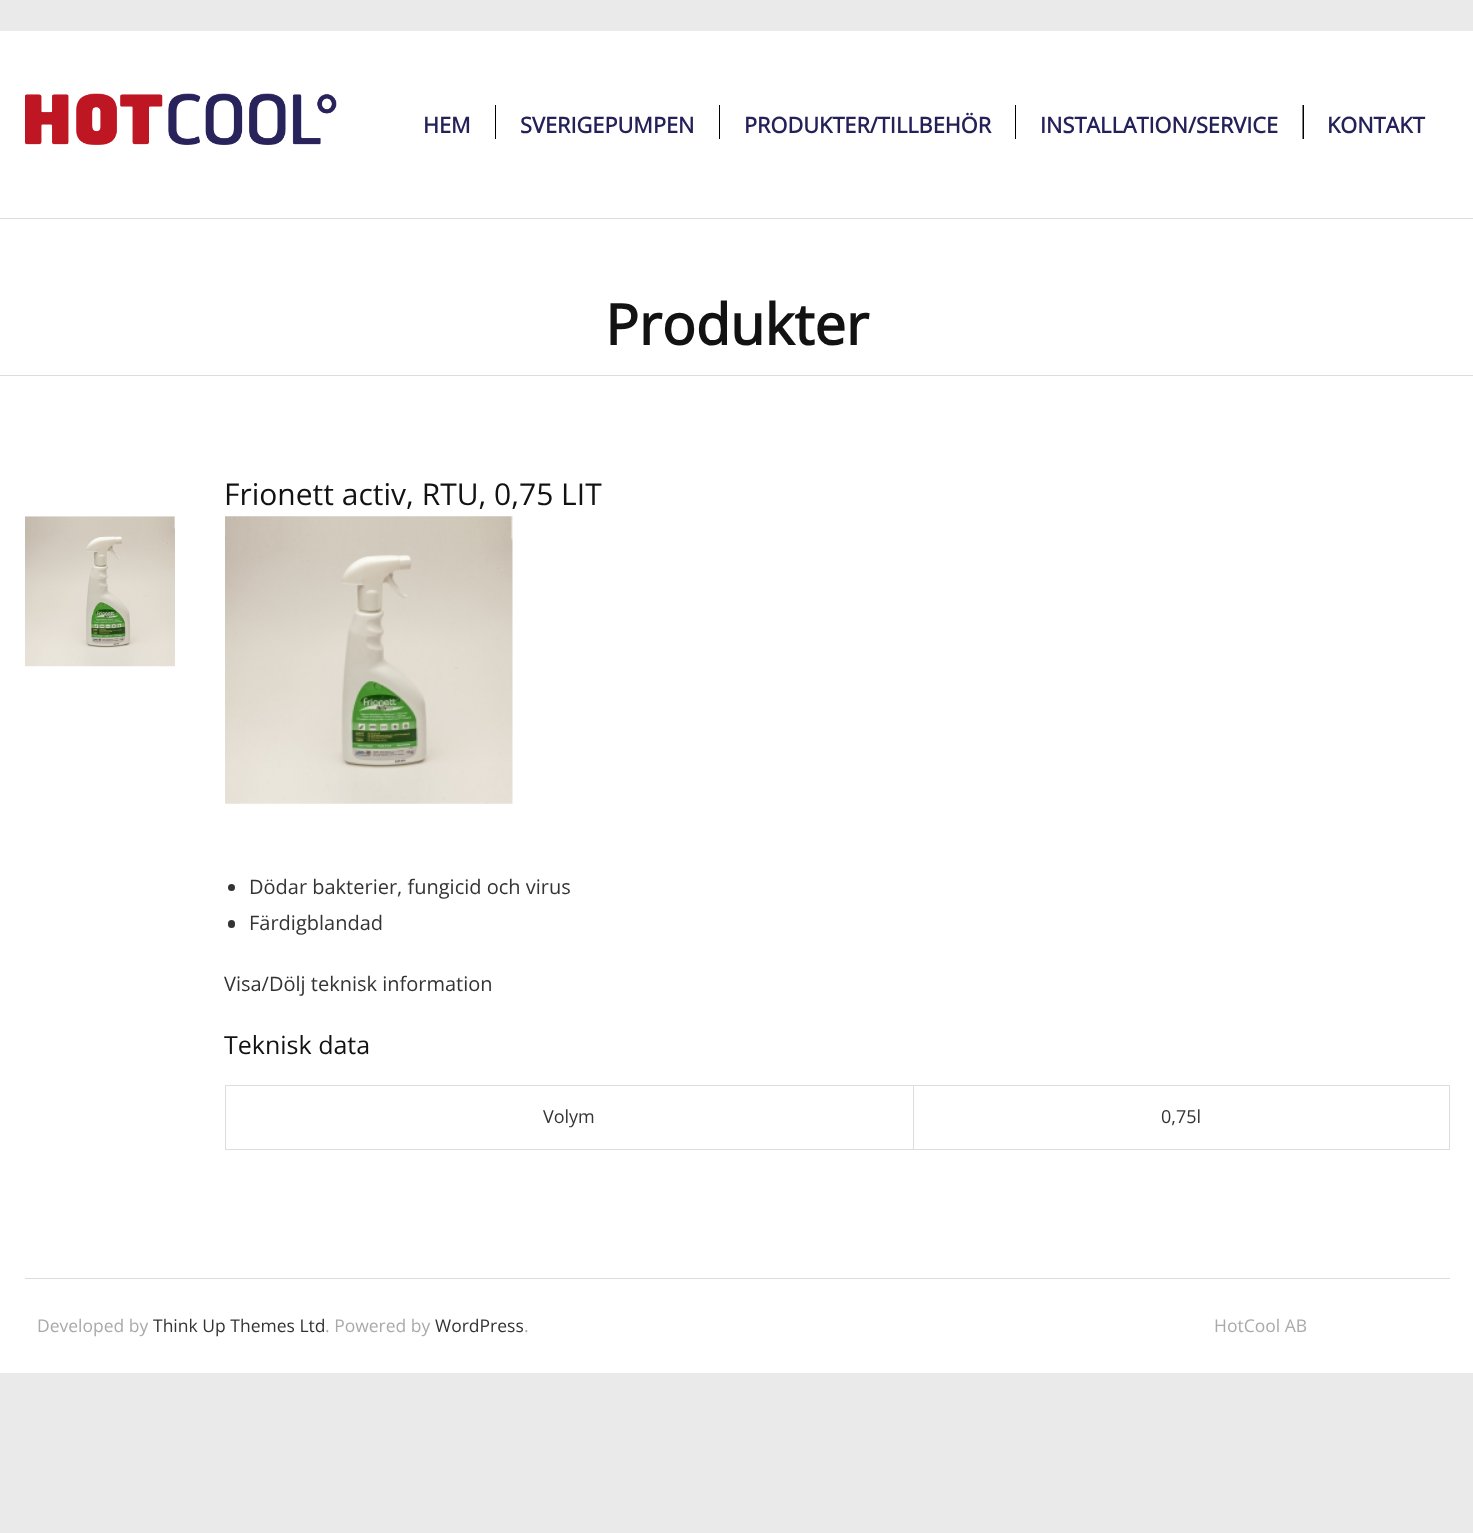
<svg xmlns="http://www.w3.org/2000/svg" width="1473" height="1533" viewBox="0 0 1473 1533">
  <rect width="100%" height="100%" fill="#eaeaea"/>
  <rect x="0" y="31" width="1473" height="1342" fill="#ffffff"/>
  <rect x="0" y="218" width="1473" height="1" fill="#dddddd"/>
  <image x="25" y="93" width="312" height="52" href="img1.png"/>
  <text x="423" y="133" font-family="Open Sans" font-size="21.75" font-weight="bold" fill="#242159">HEM</text>
  <path d="M491 139H496V105H495V139Z" fill="#000000"/>
  <text x="520" y="133" font-family="Open Sans" font-size="21.75" font-weight="bold" fill="#242159">SVERIGEPUMPEN</text>
  <path d="M715 139H720V105H719V139Z" fill="#000000"/>
  <text x="744" y="133" font-family="Open Sans" font-size="21.75" font-weight="bold" fill="#242159">PRODUKTER/TILLBEHÖR</text>
  <path d="M1011 139H1016V105H1015V139Z" fill="#000000"/>
  <text x="1040" y="133" font-family="Open Sans" font-size="21.75" font-weight="bold" fill="#242159">INSTALLATION/SERVICE</text>
  <path d="M1299 139H1304V105H1302.5V139Z" fill="#000000"/>
  <text x="1327" y="133" font-family="Open Sans" font-size="21.75" font-weight="bold" fill="#242159">KONTAKT</text>
  <rect x="0" y="375" width="1473" height="1" fill="#dddddd"/>
  <text x="605" y="345" font-family="Open Sans" font-size="56.25" font-weight="bold" fill="#121212">Produkter</text>
  <text x="224" y="505" font-family="Open Sans" font-size="30" fill="#121212">Frionett activ, RTU, 0,75 LIT</text>
  <image x="25" y="516" width="150" height="151" href="img2.png"/>
  <image x="225" y="516" width="288" height="288" href="img3.png"/>
  <circle cx="231.5" cy="887.5" r="3.5" fill="#343434"/>
  <text x="249" y="894" font-family="Open Sans" font-size="20" fill="#343434">Dödar bakterier, fungicid och virus</text>
  <rect x="228" y="920" width="7" height="8" rx="3.5" fill="#343434"/>
  <text x="249" y="930" font-family="Open Sans" font-size="20" fill="#343434">Färdigblandad</text>
  <text x="224" y="991" font-family="Open Sans" font-size="20" fill="#343434">Visa/Dölj teknisk information</text>
  <text x="224" y="1054" font-family="Open Sans" font-size="25" fill="#121212">Teknisk data</text>
  <rect x="225" y="1085" width="1225" height="1" fill="#dddddd"/>
  <rect x="1449" y="1085" width="1" height="65" fill="#dddddd"/>
  <rect x="225" y="1149" width="1225" height="1" fill="#dddddd"/>
  <rect x="225" y="1085" width="1" height="65" fill="#dddddd"/>
  <rect x="913" y="1085" width="1" height="65" fill="#dddddd"/>
  <text x="543" y="1123" font-family="Open Sans" font-size="18" fill="#343434">Volym</text>
  <text x="1161" y="1123" font-family="Open Sans" font-size="18" fill="#343434">0,75l</text>
  <rect x="25" y="1278" width="1425" height="1" fill="#dddddd"/>
  <text x="37" y="1332" font-family="Open Sans" font-size="17.5" fill="#aaaaaa">Developed by</text>
  <text x="153" y="1332" font-family="Open Sans" font-size="17.5" fill="#343434">Think Up Themes Ltd</text>
  <text x="325" y="1332" font-family="Open Sans" font-size="17.5" fill="#aaaaaa">. Powered by</text>
  <text x="435" y="1332" font-family="Open Sans" font-size="17.5" fill="#343434">WordPress</text>
  <text x="524" y="1332" font-family="Open Sans" font-size="17.5" fill="#aaaaaa">.</text>
  <text x="1214" y="1332" font-family="Open Sans" font-size="17.5" fill="#aaaaaa">HotCool AB</text>
</svg>
